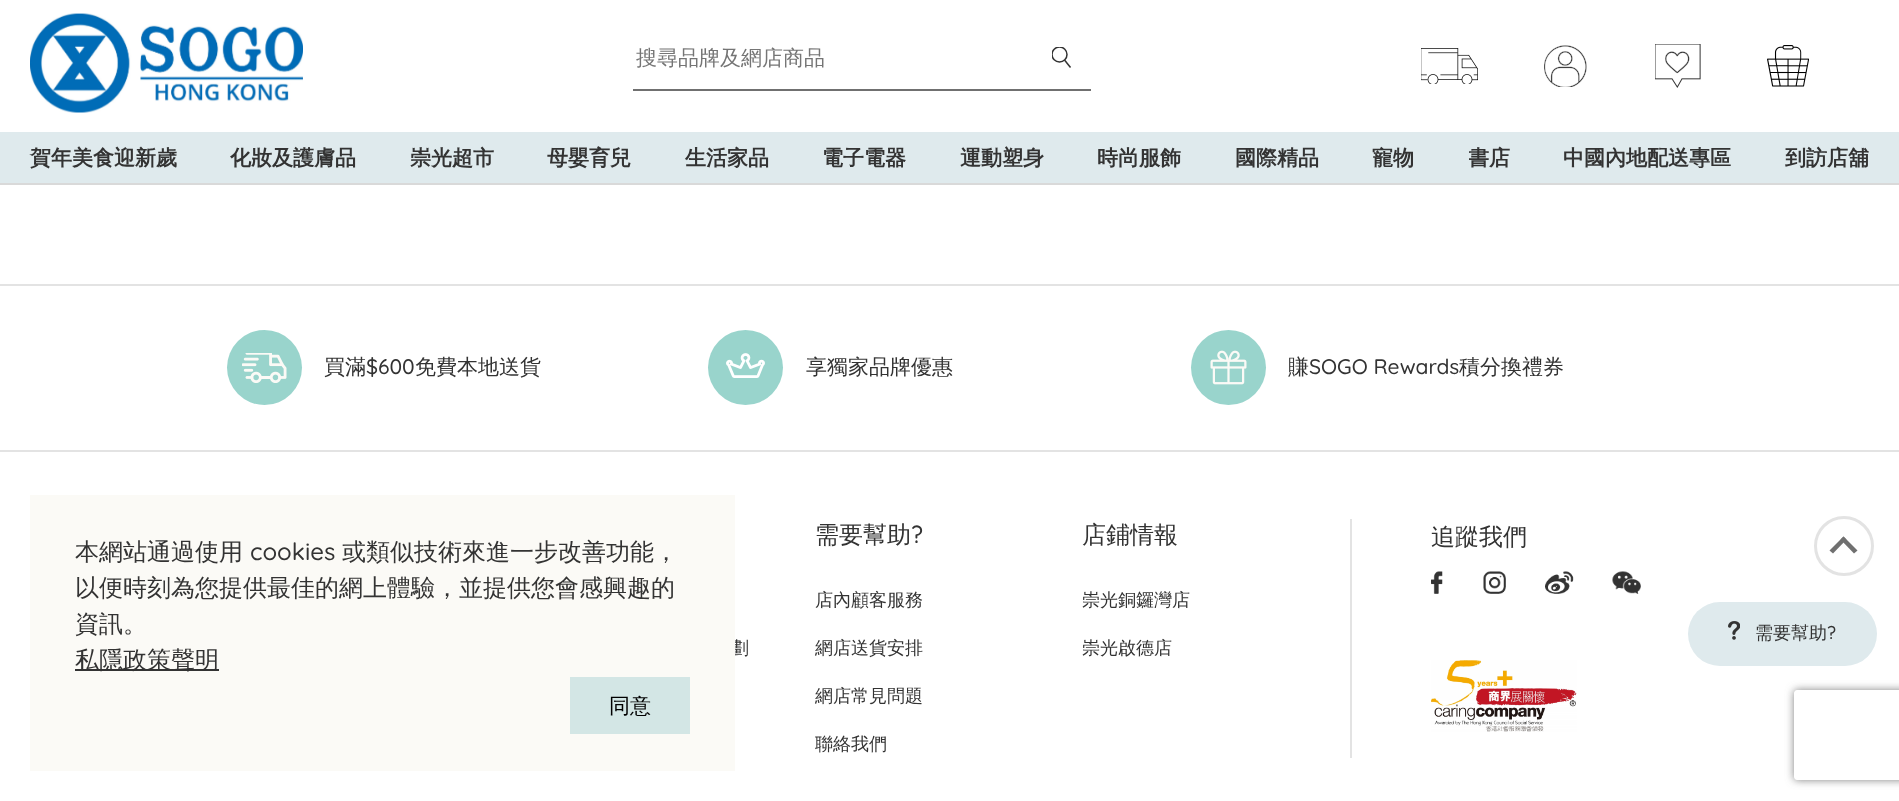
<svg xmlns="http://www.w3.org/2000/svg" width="1899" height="801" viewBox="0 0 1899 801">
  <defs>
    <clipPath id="clip1"><rect x="1052" y="47" width="19" height="21"/></clipPath>
    <clipPath id="clip2"><rect x="1469" y="132" width="42" height="51"/></clipPath>
    <clipPath id="clip3"><path d="M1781 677H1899V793H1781ZM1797 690H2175C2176.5 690 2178 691.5 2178 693V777C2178 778.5 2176.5 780 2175 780H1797C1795.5 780 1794 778.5 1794 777V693C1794 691.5 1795.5 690 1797 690Z" clip-rule="evenodd"/></clipPath>
    <filter id="blur1" x="-50%" y="-200%" width="200%" height="500%"><feGaussianBlur stdDeviation="4"/></filter>
  </defs>
  <rect width="100%" height="100%" fill="#ffffff"/>
  <image x="30" y="13" width="273" height="100" href="img1.png"/>
  <rect x="633" y="89" width="458" height="2" fill="#707070"/>
  <text x="636" y="65" font-family="WenQuanYi Zen Hei" font-size="21" font-weight="500" fill="#757575">搜尋品牌及網店商品</text>
  <g clip-path="url(#clip1)">
    <circle cx="1059.5" cy="54.5" r="7.5" fill="none" stroke="#333333" stroke-width="1.5"/>
  </g>
  <path d="M1064.5 60L1070.5 67.5" fill="none" stroke="#333333" stroke-width="1.5"/>
  <image x="1421" y="48" width="57" height="36" href="img2.png"/>
  <image x="1544" y="45" width="43" height="42" href="img3.png"/>
  <image x="1655" y="44" width="46" height="44" href="img4.png"/>
  <image x="1767" y="45" width="42" height="42" href="img5.png"/>
  <rect x="0" y="132" width="1899" height="51" fill="#dfeaed"/>
  <rect x="0" y="183" width="1899" height="2" fill="#d9d9d9"/>
  <text x="30" y="165" font-family="WenQuanYi Zen Hei" font-size="21" font-weight="bold" fill="#333333">賀年美食迎新歲</text>
  <text x="230" y="165" font-family="WenQuanYi Zen Hei" font-size="21" font-weight="bold" fill="#333333">化妝及護膚品</text>
  <text x="410" y="165" font-family="WenQuanYi Zen Hei" font-size="21" font-weight="bold" fill="#333333">崇光超市</text>
  <text x="547" y="165" font-family="WenQuanYi Zen Hei" font-size="21" font-weight="bold" fill="#333333">母嬰育兒</text>
  <text x="685" y="165" font-family="WenQuanYi Zen Hei" font-size="21" font-weight="bold" fill="#333333">生活家品</text>
  <text x="822" y="165" font-family="WenQuanYi Zen Hei" font-size="21" font-weight="bold" fill="#333333">電子電器</text>
  <text x="960" y="165" font-family="WenQuanYi Zen Hei" font-size="21" font-weight="bold" fill="#333333">運動塑身</text>
  <text x="1097" y="165" font-family="WenQuanYi Zen Hei" font-size="21" font-weight="bold" fill="#333333">時尚服飾</text>
  <text x="1235" y="165" font-family="WenQuanYi Zen Hei" font-size="21" font-weight="bold" fill="#333333">國際精品</text>
  <text x="1372" y="165" font-family="WenQuanYi Zen Hei" font-size="21" font-weight="bold" fill="#333333">寵物</text>
  <g clip-path="url(#clip2)">
    <text x="1468" y="165" font-family="WenQuanYi Zen Hei" font-size="21" font-weight="bold" fill="#333333">書店</text>
  </g>
  <text x="1563" y="165" font-family="WenQuanYi Zen Hei" font-size="21" font-weight="bold" fill="#333333">中國內地配送專區</text>
  <text x="1785" y="165" font-family="WenQuanYi Zen Hei" font-size="21" font-weight="bold" fill="#333333">到訪店舖</text>
  <rect x="0" y="284" width="1899" height="2" fill="#e3e3e3"/>
  <circle cx="264.5" cy="367.5" r="37.5" fill="#99d4cc"/>
  <image x="242" y="353" width="45" height="30" href="img6.png"/>
  <text x="324" y="374" font-family="WenQuanYi Zen Hei" font-size="21" font-weight="500" fill="#333333">買滿</text>
  <text x="366" y="374" font-family="Quicksand" font-size="21" font-weight="500" fill="#333333">$600</text>
  <text x="415" y="374" font-family="WenQuanYi Zen Hei" font-size="21" font-weight="500" fill="#333333">免費本地送貨</text>
  <circle cx="745.5" cy="367.5" r="37.5" fill="#99d4cc"/>
  <image x="726" y="353" width="39" height="25" href="img7.png"/>
  <text x="806" y="374" font-family="WenQuanYi Zen Hei" font-size="21" font-weight="500" fill="#333333">享獨家品牌優惠</text>
  <circle cx="1228.5" cy="367.5" r="37.5" fill="#99d4cc"/>
  <image x="1210" y="350" width="37" height="35" href="img8.png"/>
  <text x="1288" y="374" font-family="WenQuanYi Zen Hei" font-size="21" font-weight="500" fill="#333333">賺</text>
  <text x="1309" y="374" font-family="Quicksand" font-size="21" font-weight="500" fill="#333333">SOGO Rewards</text>
  <text x="1459" y="374" font-family="WenQuanYi Zen Hei" font-size="21" font-weight="500" fill="#333333">積分換禮券</text>
  <rect x="0" y="450" width="1899" height="2" fill="#e3e3e3"/>
  <text x="731" y="654" font-family="WenQuanYi Zen Hei" font-size="18" font-weight="500" fill="#333333">劃</text>
  <text x="815" y="543" font-family="WenQuanYi Zen Hei" font-size="24" font-weight="500" fill="#333333">需要幫助</text>
  <text x="911" y="543" font-family="Quicksand" font-size="24" font-weight="500" fill="#333333">?</text>
  <text x="815" y="606" font-family="WenQuanYi Zen Hei" font-size="18" font-weight="500" fill="#333333">店內顧客服務</text>
  <text x="815" y="654" font-family="WenQuanYi Zen Hei" font-size="18" font-weight="500" fill="#333333">網店送貨安排</text>
  <text x="815" y="702" font-family="WenQuanYi Zen Hei" font-size="18" font-weight="500" fill="#333333">網店常見問題</text>
  <text x="815" y="750" font-family="WenQuanYi Zen Hei" font-size="18" font-weight="500" fill="#333333">聯絡我們</text>
  <text x="1082" y="543" font-family="WenQuanYi Zen Hei" font-size="24" font-weight="500" fill="#333333">店鋪情報</text>
  <text x="1082" y="606" font-family="WenQuanYi Zen Hei" font-size="18" font-weight="500" fill="#333333">崇光銅鑼灣店</text>
  <text x="1082" y="654" font-family="WenQuanYi Zen Hei" font-size="18" font-weight="500" fill="#333333">崇光啟德店</text>
  <rect x="1350" y="519" width="2" height="239" fill="#e3e3e3"/>
  <text x="1431" y="545" font-family="WenQuanYi Zen Hei" font-size="24" font-weight="500" fill="#333333">追蹤我們</text>
  <image x="1431" y="571" width="12" height="23" href="img9.png"/>
  <image x="1483" y="571" width="23" height="23" href="img10.png"/>
  <image x="1545" y="571" width="29" height="23" href="img11.png"/>
  <image x="1612" y="571" width="29" height="23" href="img12.png"/>
  <image x="1431" y="660" width="146" height="72" href="img13.png"/>
  <rect x="30" y="495" width="705" height="276" fill="#fbfaf6"/>
  <text x="75" y="560" font-family="WenQuanYi Zen Hei" font-size="24" font-weight="500" fill="#333333">本網站通過使用</text>
  <text x="250" y="560" font-family="Quicksand" font-size="24" font-weight="500" fill="#333333">cookies</text>
  <text x="342" y="560" font-family="WenQuanYi Zen Hei" font-size="24" font-weight="500" fill="#333333">或類似技術來進一步改善功能，</text>
  <text x="75" y="596" font-family="WenQuanYi Zen Hei" font-size="24" font-weight="500" fill="#333333">以便時刻為您提供最佳的網上體驗，並提供您會感興趣的</text>
  <text x="75" y="632" font-family="WenQuanYi Zen Hei" font-size="24" font-weight="500" fill="#333333">資訊。</text>
  <rect x="75" y="669" width="144" height="2" fill="#333333"/>
  <text x="75" y="668" font-family="WenQuanYi Zen Hei" font-size="24" font-weight="500" fill="#333333">私隱政策聲明</text>
  <rect x="570" y="677" width="120" height="57" fill="#d3e6e5"/>
  <text x="609" y="713" font-family="WenQuanYi Zen Hei" font-size="21" font-weight="500" fill="#000000">同意</text>
  <rect x="1688" y="602" width="189" height="64" rx="32" fill="#dfeaed"/>
  <image x="1728" y="621" width="12" height="19" href="img14.png"/>
  <text x="1755" y="639" font-family="WenQuanYi Zen Hei" font-size="18" font-weight="500" fill="#333333">需要幫助</text>
  <text x="1827" y="639" font-family="Quicksand" font-size="18" font-weight="500" fill="#333333">?</text>
  <circle cx="1844" cy="546" r="28.5" fill="none" stroke="#e3e3e3" stroke-width="3"/>
  <path d="M1833 553.5L1829.5 550.5L1843.5 536.5L1846.5 539.5Z" fill="#707070"/>
  <path d="M1854 553.5L1840.5 539.5L1843.5 536.5L1857.5 550.5Z" fill="#707070"/>
  <g clip-path="url(#clip3)">
    <rect x="1794" y="690" width="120" height="90" rx="3" fill="#808080" filter="url(#blur1)"/>
  </g>
</svg>
